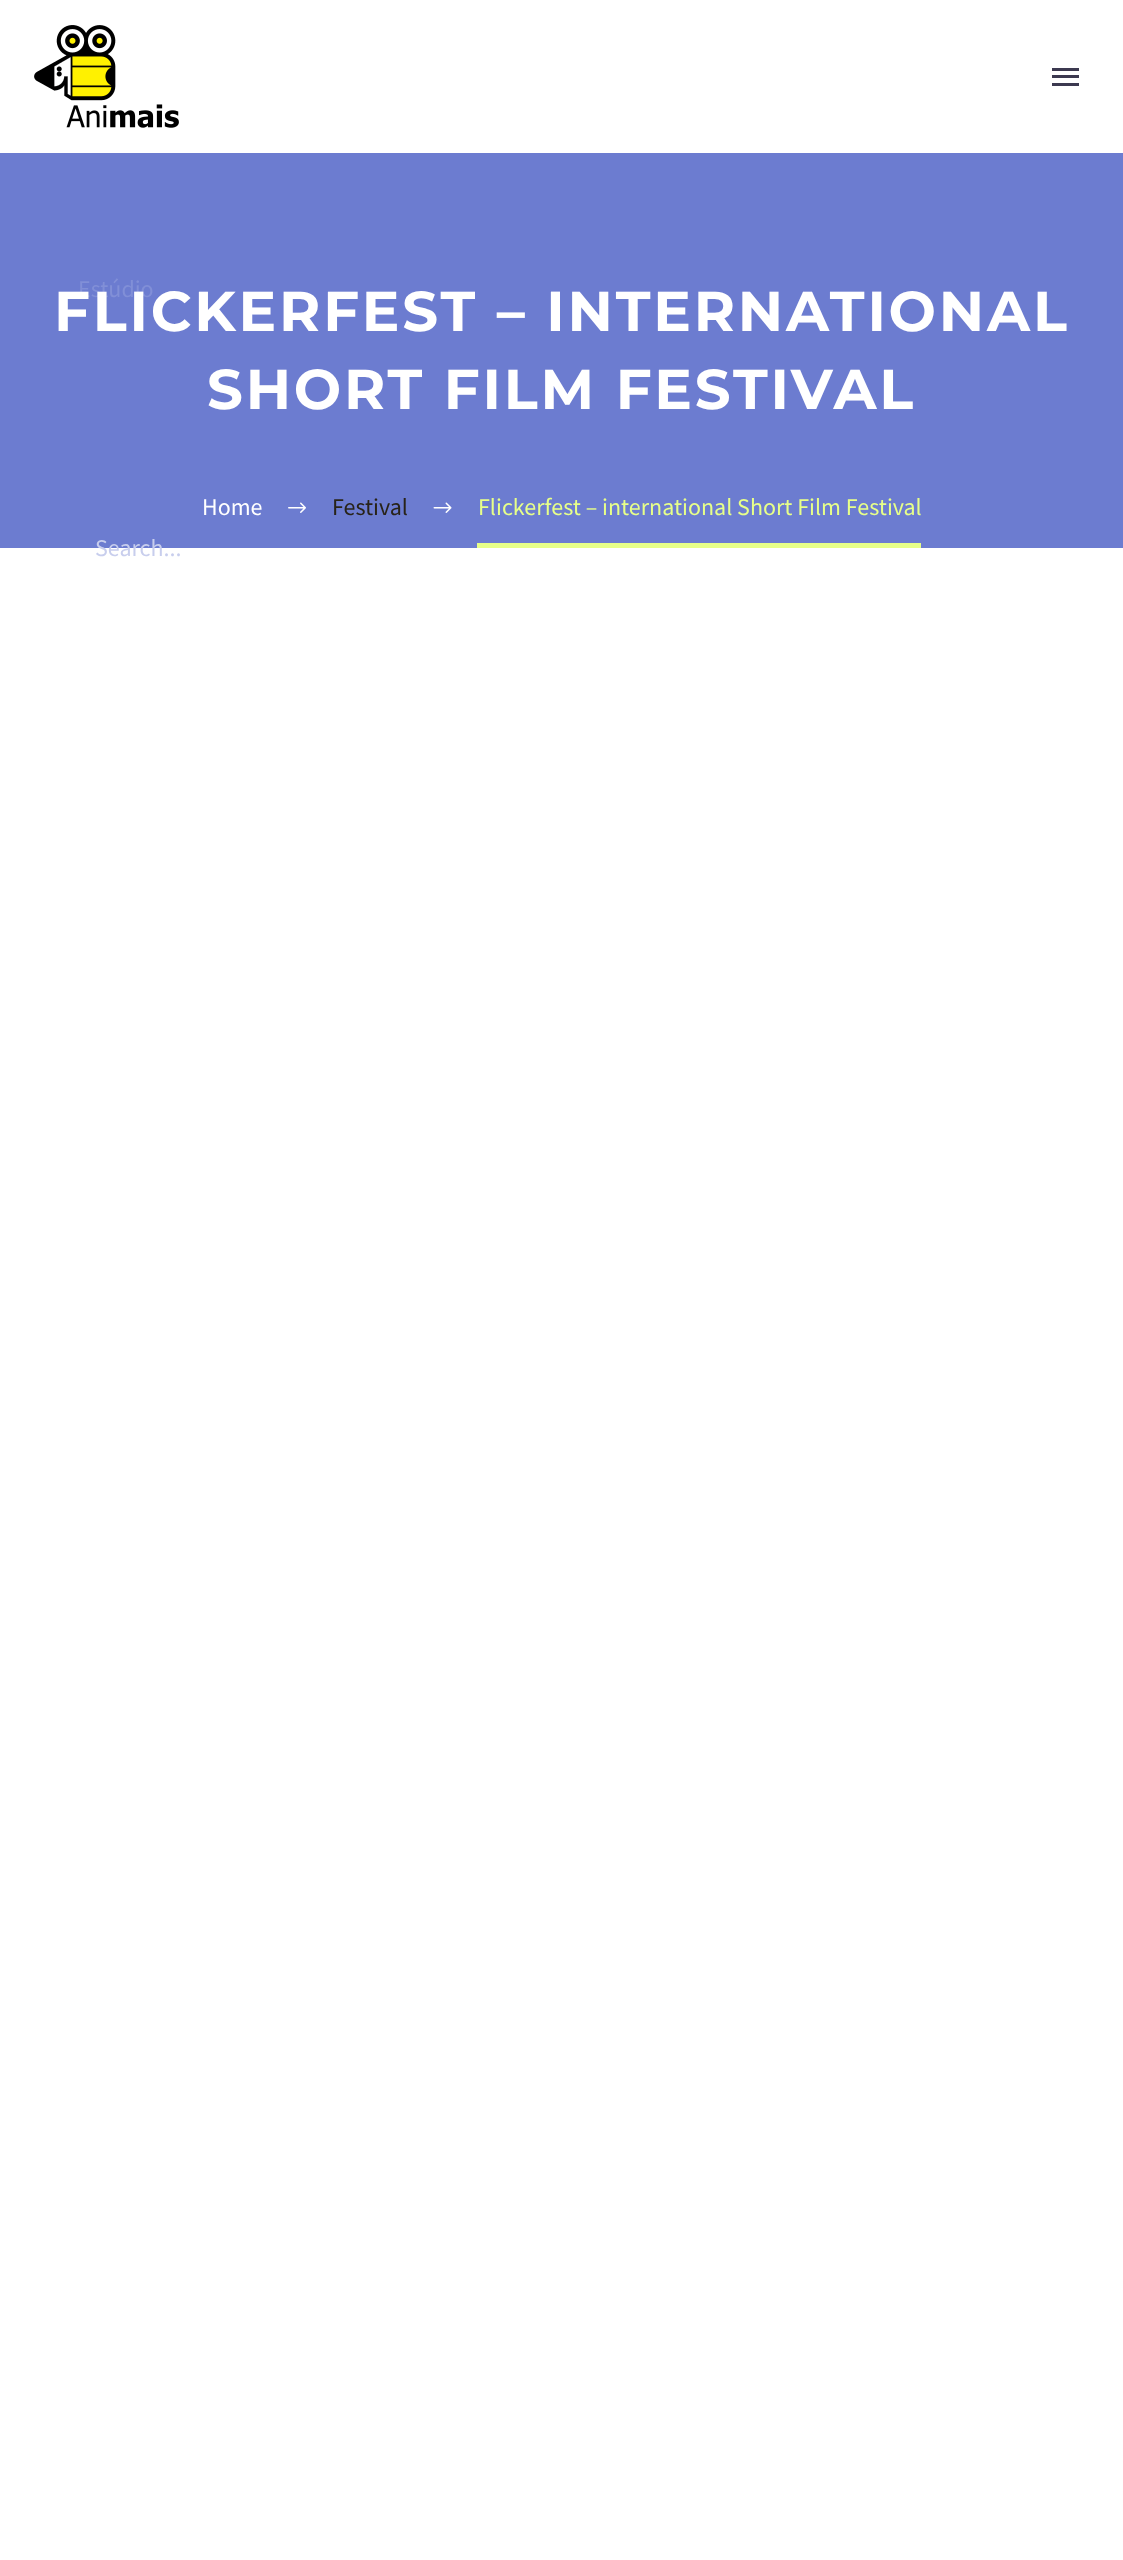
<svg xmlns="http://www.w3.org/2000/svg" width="1123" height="2560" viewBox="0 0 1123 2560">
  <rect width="100%" height="100%" fill="#ffffff"/>
  <image x="34" y="25" width="145" height="103" href="img1.png"/>
  <rect x="1052" y="68" width="27" height="3" fill="#3c3950"/>
  <rect x="1052" y="75" width="27" height="3" fill="#3c3950"/>
  <rect x="1052" y="83" width="27" height="3" fill="#3c3950"/>
  <rect x="0" y="153" width="1123" height="395" fill="#6c7cd0"/>
  <text x="78" y="297" font-family="Source Sans Pro" font-size="24" fill="#818fd7">Estúdio</text>
  <text x="95" y="556" font-family="Source Sans Pro" font-size="24" fill="#c8ceed">Search...</text>
  <text x="54" y="331" font-family="Montserrat" font-size="56.2" font-weight="bold" letter-spacing="2.8" fill="#ffffff">FLICKERFEST – INTERNATIONAL</text>
  <text x="207" y="409" font-family="Montserrat" font-size="56.2" font-weight="bold" letter-spacing="2.8" fill="#ffffff">SHORT FILM FESTIVAL</text>
  <text x="202" y="515" font-family="Source Sans Pro" font-size="24" fill="#ffffff">Home</text>
  <image x="288" y="502" width="18" height="11" href="img2.png"/>
  <text x="332" y="515" font-family="Source Sans Pro" font-size="24" fill="#282318">Festival</text>
  <image x="433" y="502" width="19" height="11" href="img3.png"/>
  <rect x="477" y="543" width="444" height="5" fill="#e7ff89"/>
  <text x="478" y="515" font-family="Source Sans Pro" font-size="24" fill="#e7ff89">Flickerfest – international Short Film Festival</text>
</svg>
